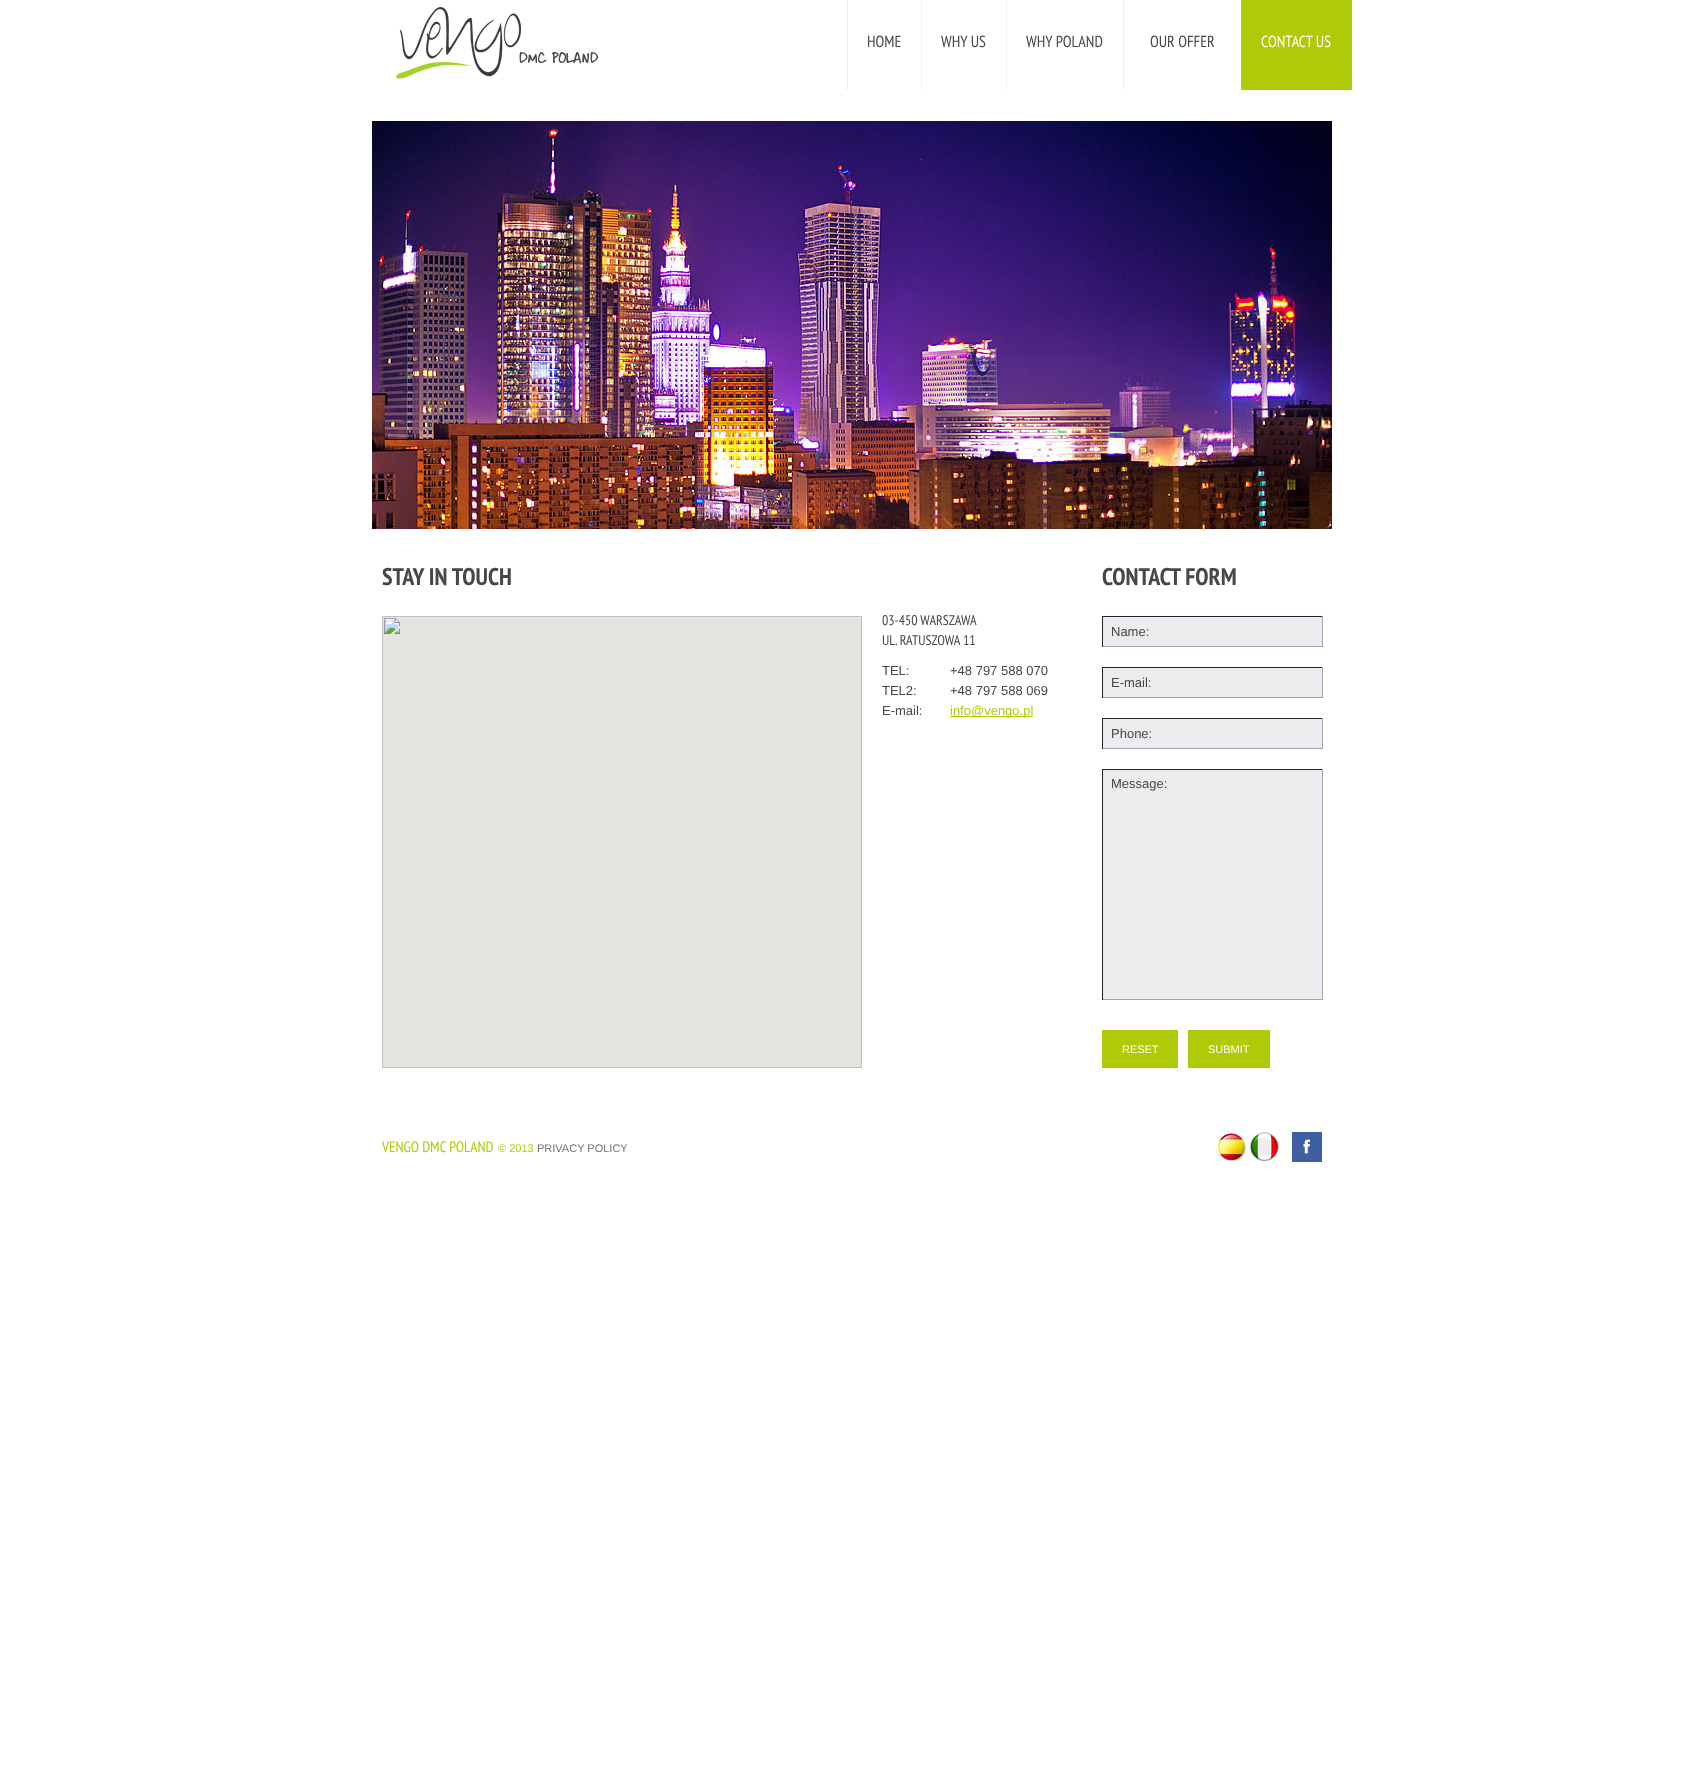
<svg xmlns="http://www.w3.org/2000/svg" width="1703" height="1782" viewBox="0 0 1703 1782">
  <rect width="100%" height="100%" fill="#ffffff"/>
  <image x="396" y="7" width="202" height="72" href="img1.png"/>
  <rect x="847" y="0" width="1" height="90" fill="#eff0ed"/>
  <text x="867" y="47" font-family="PT Sans Narrow" font-size="16" fill="#474747">HOME</text>
  <rect x="921" y="0" width="1" height="90" fill="#eff0ed"/>
  <text x="941" y="47" font-family="PT Sans Narrow" font-size="16" fill="#474747">WHY US</text>
  <rect x="1006" y="0" width="1" height="90" fill="#eff0ed"/>
  <text x="1026" y="47" font-family="PT Sans Narrow" font-size="16" fill="#474747">WHY POLAND</text>
  <rect x="1123" y="0" width="1" height="90" fill="#eff0ed"/>
  <text x="1150" y="47" font-family="PT Sans Narrow" font-size="16" fill="#474747">OUR OFFER</text>
  <rect x="1241" y="0" width="111" height="90" fill="#afca09"/>
  <text x="1261" y="47" font-family="PT Sans Narrow" font-size="16" fill="#ffffff">CONTACT US</text>
  <image x="372" y="121" width="960" height="408" href="img2.png"/>
  <text x="382" y="585" font-family="PT Sans Narrow" font-size="24" font-weight="bold" fill="#474747">STAY IN TOUCH</text>
  <image x="382" y="616" width="480" height="452" href="img3.png"/>
  <text x="882" y="625" font-family="PT Sans Narrow" font-size="14" fill="#474747">03-450 WARSZAWA</text>
  <text x="882" y="645" font-family="PT Sans Narrow" font-size="14" fill="#474747">UL. RATUSZOWA 11</text>
  <text x="882" y="675" font-family="Liberation Sans" font-size="13" fill="#474747">TEL:</text>
  <text x="950" y="675" font-family="Liberation Sans" font-size="13" fill="#474747">+48 797 588 070</text>
  <text x="882" y="695" font-family="Liberation Sans" font-size="13" fill="#474747">TEL2:</text>
  <text x="950" y="695" font-family="Liberation Sans" font-size="13" fill="#474747">+48 797 588 069</text>
  <text x="882" y="715" font-family="Liberation Sans" font-size="13" fill="#474747">E-mail:</text>
  <rect x="950" y="716" width="83" height="1" fill="#afcb07"/>
  <text x="950" y="715" font-family="Liberation Sans" font-size="13" fill="#afcb07">info@vengo.pl</text>
  <text x="1102" y="585" font-family="PT Sans Narrow" font-size="24" font-weight="bold" fill="#474747">CONTACT FORM</text>
  <rect x="1103" y="617" width="219" height="29" fill="#ececee"/>
  <rect x="1102" y="616" width="221" height="1" fill="#1f232f"/>
  <rect x="1322" y="616" width="1" height="31" fill="#9fa1b1"/>
  <rect x="1102" y="646" width="221" height="1" fill="#9fa1b1"/>
  <rect x="1102" y="616" width="1" height="31" fill="#1f232f"/>
  <text x="1111" y="636" font-family="Liberation Sans" font-size="13" fill="#474747">Name:</text>
  <rect x="1103" y="668" width="219" height="29" fill="#ececee"/>
  <rect x="1102" y="667" width="221" height="1" fill="#1f232f"/>
  <rect x="1322" y="667" width="1" height="31" fill="#9fa1b1"/>
  <rect x="1102" y="697" width="221" height="1" fill="#9fa1b1"/>
  <rect x="1102" y="667" width="1" height="31" fill="#1f232f"/>
  <text x="1111" y="687" font-family="Liberation Sans" font-size="13" fill="#474747">E-mail:</text>
  <rect x="1103" y="719" width="219" height="29" fill="#ececee"/>
  <rect x="1102" y="718" width="221" height="1" fill="#1f232f"/>
  <rect x="1322" y="718" width="1" height="31" fill="#9fa1b1"/>
  <rect x="1102" y="748" width="221" height="1" fill="#9fa1b1"/>
  <rect x="1102" y="718" width="1" height="31" fill="#1f232f"/>
  <text x="1111" y="738" font-family="Liberation Sans" font-size="13" fill="#474747">Phone:</text>
  <rect x="1103" y="770" width="219" height="229" fill="#ececee"/>
  <rect x="1102" y="769" width="221" height="1" fill="#1f232f"/>
  <rect x="1322" y="769" width="1" height="231" fill="#9fa1b1"/>
  <rect x="1102" y="999" width="221" height="1" fill="#9fa1b1"/>
  <rect x="1102" y="769" width="1" height="231" fill="#1f232f"/>
  <text x="1111" y="788" font-family="Liberation Sans" font-size="13" fill="#474747">Message:</text>
  <rect x="1102" y="1030" width="76" height="38" fill="#afca09"/>
  <text x="1122" y="1053" font-family="Liberation Sans" font-size="11" fill="#ffffff">RESET</text>
  <rect x="1188" y="1030" width="82" height="38" fill="#afca09"/>
  <text x="1208" y="1053" font-family="Liberation Sans" font-size="11" fill="#ffffff">SUBMIT</text>
  <text x="382" y="1152" font-family="PT Sans Narrow" font-size="15" fill="#afcb07">VENGO DMC POLAND</text>
  <text x="498" y="1152" font-family="Liberation Sans" font-size="11" fill="#afcb07">© 2013</text>
  <text x="537" y="1152" font-family="Liberation Sans" font-size="11" fill="#707277">PRIVACY POLICY</text>
  <image x="1217" y="1132" width="30" height="30" href="img4.png"/>
  <image x="1250" y="1132" width="30" height="30" href="img5.png"/>
  <rect x="1292" y="1132" width="30" height="30" fill="#3f5fa3"/>
  <image x="1303" y="1139" width="7" height="15" href="img6.png"/>
</svg>
